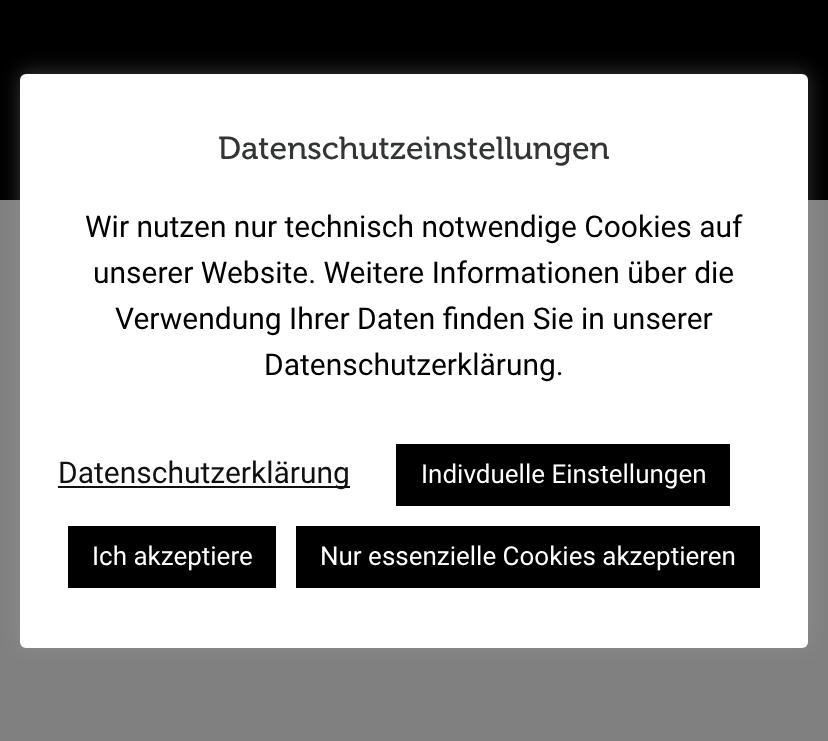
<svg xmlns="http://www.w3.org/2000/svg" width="828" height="741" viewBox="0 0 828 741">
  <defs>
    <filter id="blur1" x="-50%" y="-200%" width="200%" height="500%"><feGaussianBlur stdDeviation="10"/></filter>
  </defs>
  <rect width="100%" height="100%" fill="#808080"/>
  <rect x="0" y="0" width="828" height="200" fill="#000000"/>
  <rect x="20" y="72" width="788" height="574" rx="6" fill="#acabab" fill-opacity="0.3" filter="url(#blur1)"/>
  <rect x="20" y="74" width="788" height="574" rx="6" fill="#ffffff"/>
  <text x="218" y="159" font-family="'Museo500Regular'" font-size="32" fill="#323436">Datenschutzeinstellungen</text>
  <text x="85" y="237" font-family="Roboto" font-size="30" fill="#000000">Wir nutzen nur technisch notwendige Cookies auf</text>
  <text x="93" y="283" font-family="Roboto" font-size="30" fill="#000000">unserer Website. Weitere Informationen über die</text>
  <text x="115" y="329" font-family="Roboto" font-size="30" fill="#000000">Verwendung Ihrer Daten finden Sie in unserer</text>
  <text x="264" y="375" font-family="Roboto" font-size="30" fill="#000000">Datenschutzerklärung.</text>
  <rect x="58" y="486" width="292" height="2" fill="#111111"/>
  <text x="58" y="483" font-family="Roboto" font-size="30" fill="#111111">Datenschutzerklärung</text>
  <rect x="396" y="444" width="334" height="62" fill="#000000"/>
  <text x="421" y="483" font-family="Roboto" font-size="26" fill="#ffffff">Indivduelle Einstellungen</text>
  <rect x="68" y="526" width="208" height="62" fill="#000000"/>
  <text x="92" y="565" font-family="Roboto" font-size="26" fill="#ffffff">Ich akzeptiere</text>
  <rect x="296" y="526" width="464" height="62" fill="#000000"/>
  <text x="320" y="565" font-family="Roboto" font-size="26" fill="#ffffff">Nur essenzielle Cookies akzeptieren</text>
</svg>
